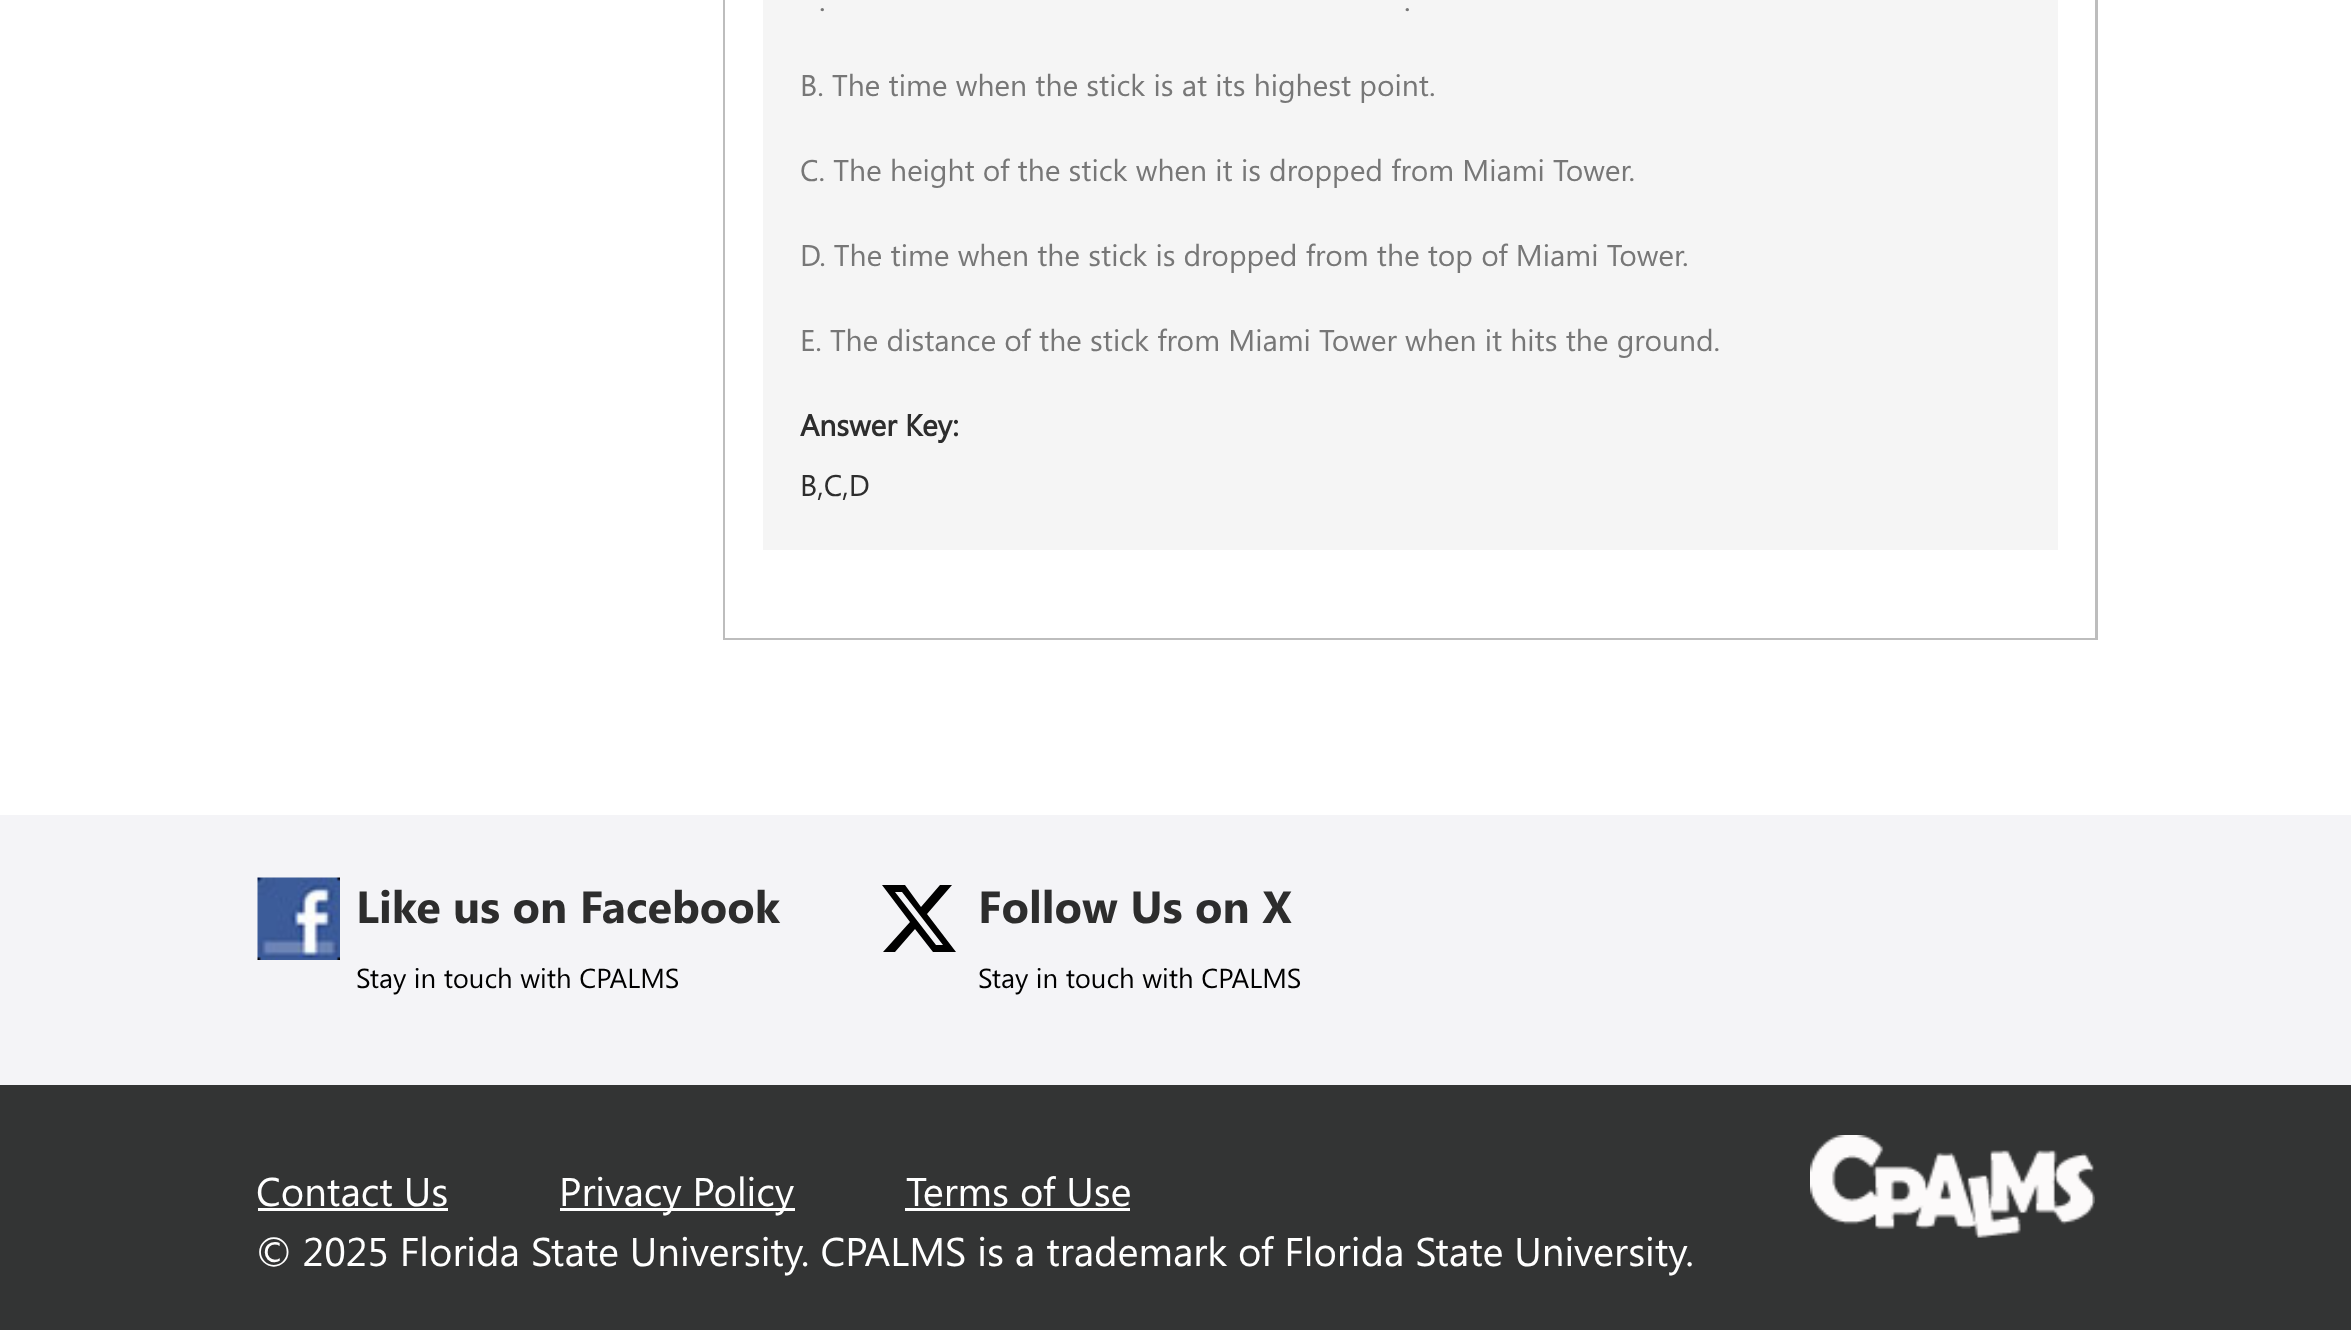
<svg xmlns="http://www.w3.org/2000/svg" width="2351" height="1330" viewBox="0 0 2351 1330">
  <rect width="100%" height="100%" fill="#ffffff"/>
  <rect x="724.5" y="-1.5" width="1372" height="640" fill="none" stroke="#bdbdbd" stroke-width="3"/>
  <rect x="725" y="0" width="1370" height="638" fill="#ffffff"/>
  <rect x="763" y="0" width="1295" height="550" fill="#f5f5f5"/>
  <text x="819" y="11" font-family="Segoe UI" font-size="30" fill="#777777">.</text>
  <text x="1404" y="11" font-family="Segoe UI" font-size="30" fill="#777777">.</text>
  <text x="800" y="96" font-family="Segoe UI" font-size="30" fill="#777777">B. The time when the stick is at its highest point.</text>
  <text x="800" y="181" font-family="Segoe UI" font-size="30" fill="#777777">C. The height of the stick when it is dropped from Miami Tower.</text>
  <text x="800" y="266" font-family="Segoe UI" font-size="30" fill="#777777">D. The time when the stick is dropped from the top of Miami Tower.</text>
  <text x="800" y="351" font-family="Segoe UI" font-size="30" fill="#777777">E. The distance of the stick from Miami Tower when it hits the ground.</text>
  <text x="800" y="436" font-family="Segoe UI" font-size="30" font-weight="bold" fill="#2d2d2d">Answer Key:</text>
  <text x="800" y="496" font-family="Segoe UI" font-size="30" fill="#2d2d2d">B,C,D</text>
  <rect x="0" y="815" width="2351" height="270" fill="#f4f4f7"/>
  <image x="257" y="877" width="83" height="83" href="img1.png"/>
  <text x="356" y="923" font-family="'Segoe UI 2'" font-size="45" font-weight="bold" fill="#2d2d2d">Like us on Facebook</text>
  <text x="356" y="988" font-family="Segoe UI" font-size="27.5" fill="#000000">Stay in touch with CPALMS</text>
  <path d="M940 885H952L927 914L956 952H933L915 929L895 952H883L910 922L882 885H905L921 907ZM936 945H943L902 892H895Z" fill="#000000"/>
  <text x="978" y="923" font-family="'Segoe UI 2'" font-size="45" font-weight="bold" fill="#2d2d2d">Follow Us on X</text>
  <text x="978" y="988" font-family="Segoe UI" font-size="27.5" fill="#000000">Stay in touch with CPALMS</text>
  <rect x="0" y="1085" width="2351" height="245" fill="#333434"/>
  <text x="256" y="1206" font-family="Segoe UI" font-size="40" fill="#ffffff">Contact Us</text>
  <rect x="258" y="1208" width="190" height="3" fill="#ffffff"/>
  <rect x="560" y="1208" width="235" height="3" fill="#ffffff"/>
  <text x="559" y="1206" font-family="Segoe UI" font-size="40" fill="#ffffff">Privacy Policy</text>
  <text x="906" y="1206" font-family="Segoe UI" font-size="40" fill="#ffffff">Terms of Use</text>
  <rect x="905" y="1208" width="225" height="3" fill="#ffffff"/>
  <text x="256" y="1266" font-family="Segoe UI" font-size="40" fill="#ffffff">© 2025 Florida State University. CPALMS is a trademark of Florida State University.</text>
  <image x="1810" y="1135" width="285" height="103" href="img2.png"/>
</svg>
